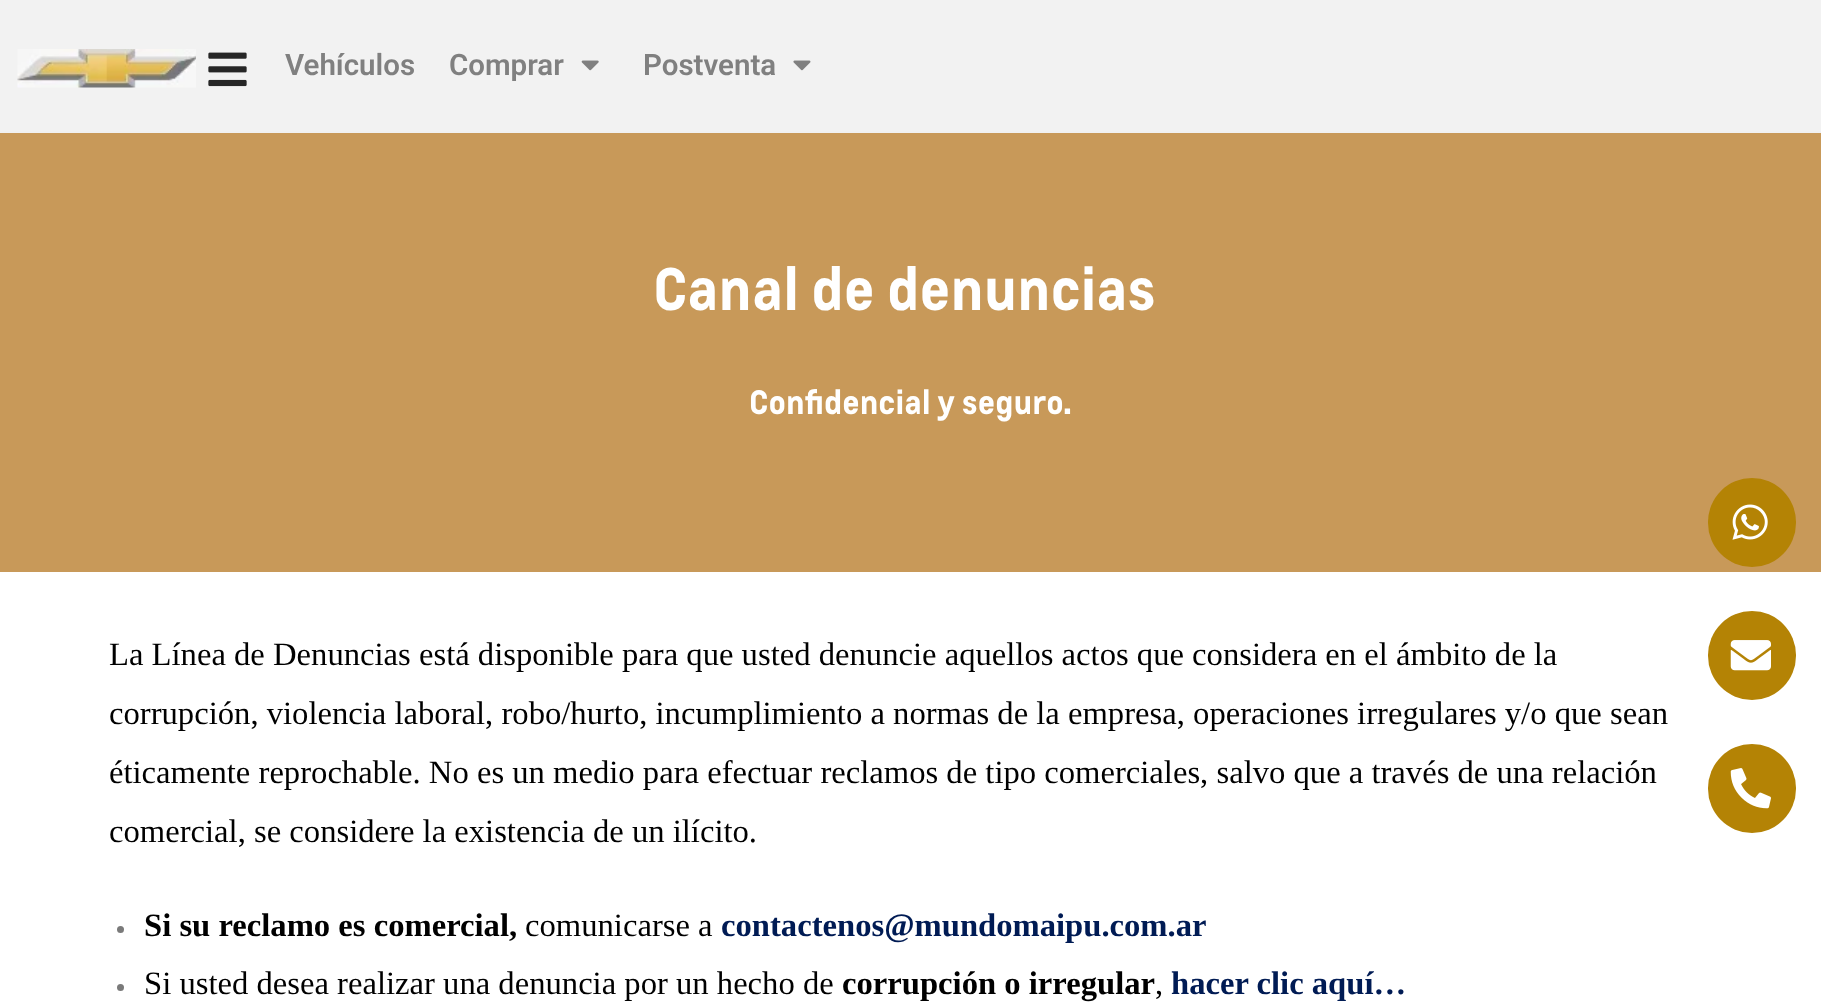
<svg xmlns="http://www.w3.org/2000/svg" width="1821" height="1008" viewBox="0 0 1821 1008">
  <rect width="100%" height="100%" fill="#ffffff"/>
  <rect x="0" y="131" width="1821" height="2" fill="#f1f1f1"/>
  <rect x="0" y="0" width="1821" height="131" fill="#f2f2f2"/>
  <image x="17" y="49" width="179" height="39" href="img1.png"/>
  <image x="208" y="52" width="39" height="35" href="img2.png"/>
  <text x="285" y="75" font-family="Roboto" font-size="29.5" font-weight="600" fill="#808080">Vehículos</text>
  <text x="449" y="75" font-family="Roboto" font-size="29.5" font-weight="600" fill="#808080">Comprar</text>
  <image x="581" y="60" width="18" height="11" href="img3.png"/>
  <text x="643" y="75" font-family="Roboto" font-size="29.5" font-weight="600" fill="#808080">Postventa</text>
  <image x="793" y="60" width="18" height="11" href="img4.png"/>
  <rect x="0" y="133" width="1821" height="439" fill="#c89959"/>
  <text x="653" y="310" font-family="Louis" font-size="56" font-weight="bold" fill="#ffffff">Canal de denuncias</text>
  <text x="749" y="414" font-family="Louis" font-size="31.5" font-weight="bold" fill="#ffffff">Confidencial y seguro.</text>
  <text x="109" y="665" font-family="Liberation Serif" font-size="32.65" fill="#000000">La Línea de Denuncias está disponible para que usted denuncie aquellos actos que considera en el ámbito de la</text>
  <text x="109" y="724" font-family="Liberation Serif" font-size="32.65" fill="#000000">corrupción, violencia laboral, robo/hurto, incumplimiento a normas de la empresa, operaciones irregulares y/o que sean</text>
  <text x="109" y="783" font-family="Liberation Serif" font-size="32.65" fill="#000000">éticamente reprochable. No es un medio para efectuar reclamos de tipo comerciales, salvo que a través de una relación</text>
  <text x="109" y="842" font-family="Liberation Serif" font-size="32.65" fill="#000000">comercial, se considere la existencia de un ilícito.</text>
  <circle cx="120.5" cy="929.5" r="3.5" fill="#7a7a7a"/>
  <text x="144" y="936" font-family="Liberation Serif" font-size="32.65" font-weight="bold" fill="#000000">Si su reclamo es comercial,</text>
  <text x="525" y="936" font-family="Liberation Serif" font-size="32.65" fill="#000000">comunicarse a</text>
  <text x="721" y="936" font-family="Liberation Serif" font-size="32.65" font-weight="bold" fill="#001b54">contactenos@mundomaipu.com.ar</text>
  <circle cx="120.5" cy="987.5" r="3.5" fill="#7a7a7a"/>
  <text x="144" y="994" font-family="Liberation Serif" font-size="32.65" fill="#000000">Si usted desea realizar una denuncia por un hecho de</text>
  <text x="842" y="994" font-family="Liberation Serif" font-size="32.65" font-weight="bold" fill="#000000">corrupción o irregular</text>
  <text x="1171" y="994" font-family="Liberation Serif" font-size="32.65" font-weight="bold" fill="#001b54">hacer clic aquí…</text>
  <text x="1155" y="994" font-family="Liberation Serif" font-size="32.65" fill="#000000">,</text>
  <rect x="1708" y="478" width="88" height="89" rx="44" fill="#b48305"/>
  <image x="1732" y="504" width="36" height="36" href="img5.png"/>
  <rect x="1708" y="611" width="88" height="89" rx="44" fill="#b48305"/>
  <image x="1730" y="640" width="41" height="31" href="img6.png"/>
  <rect x="1708" y="744" width="88" height="89" rx="44" fill="#b48305"/>
  <image x="1730" y="768" width="41" height="41" href="img7.png"/>
</svg>
